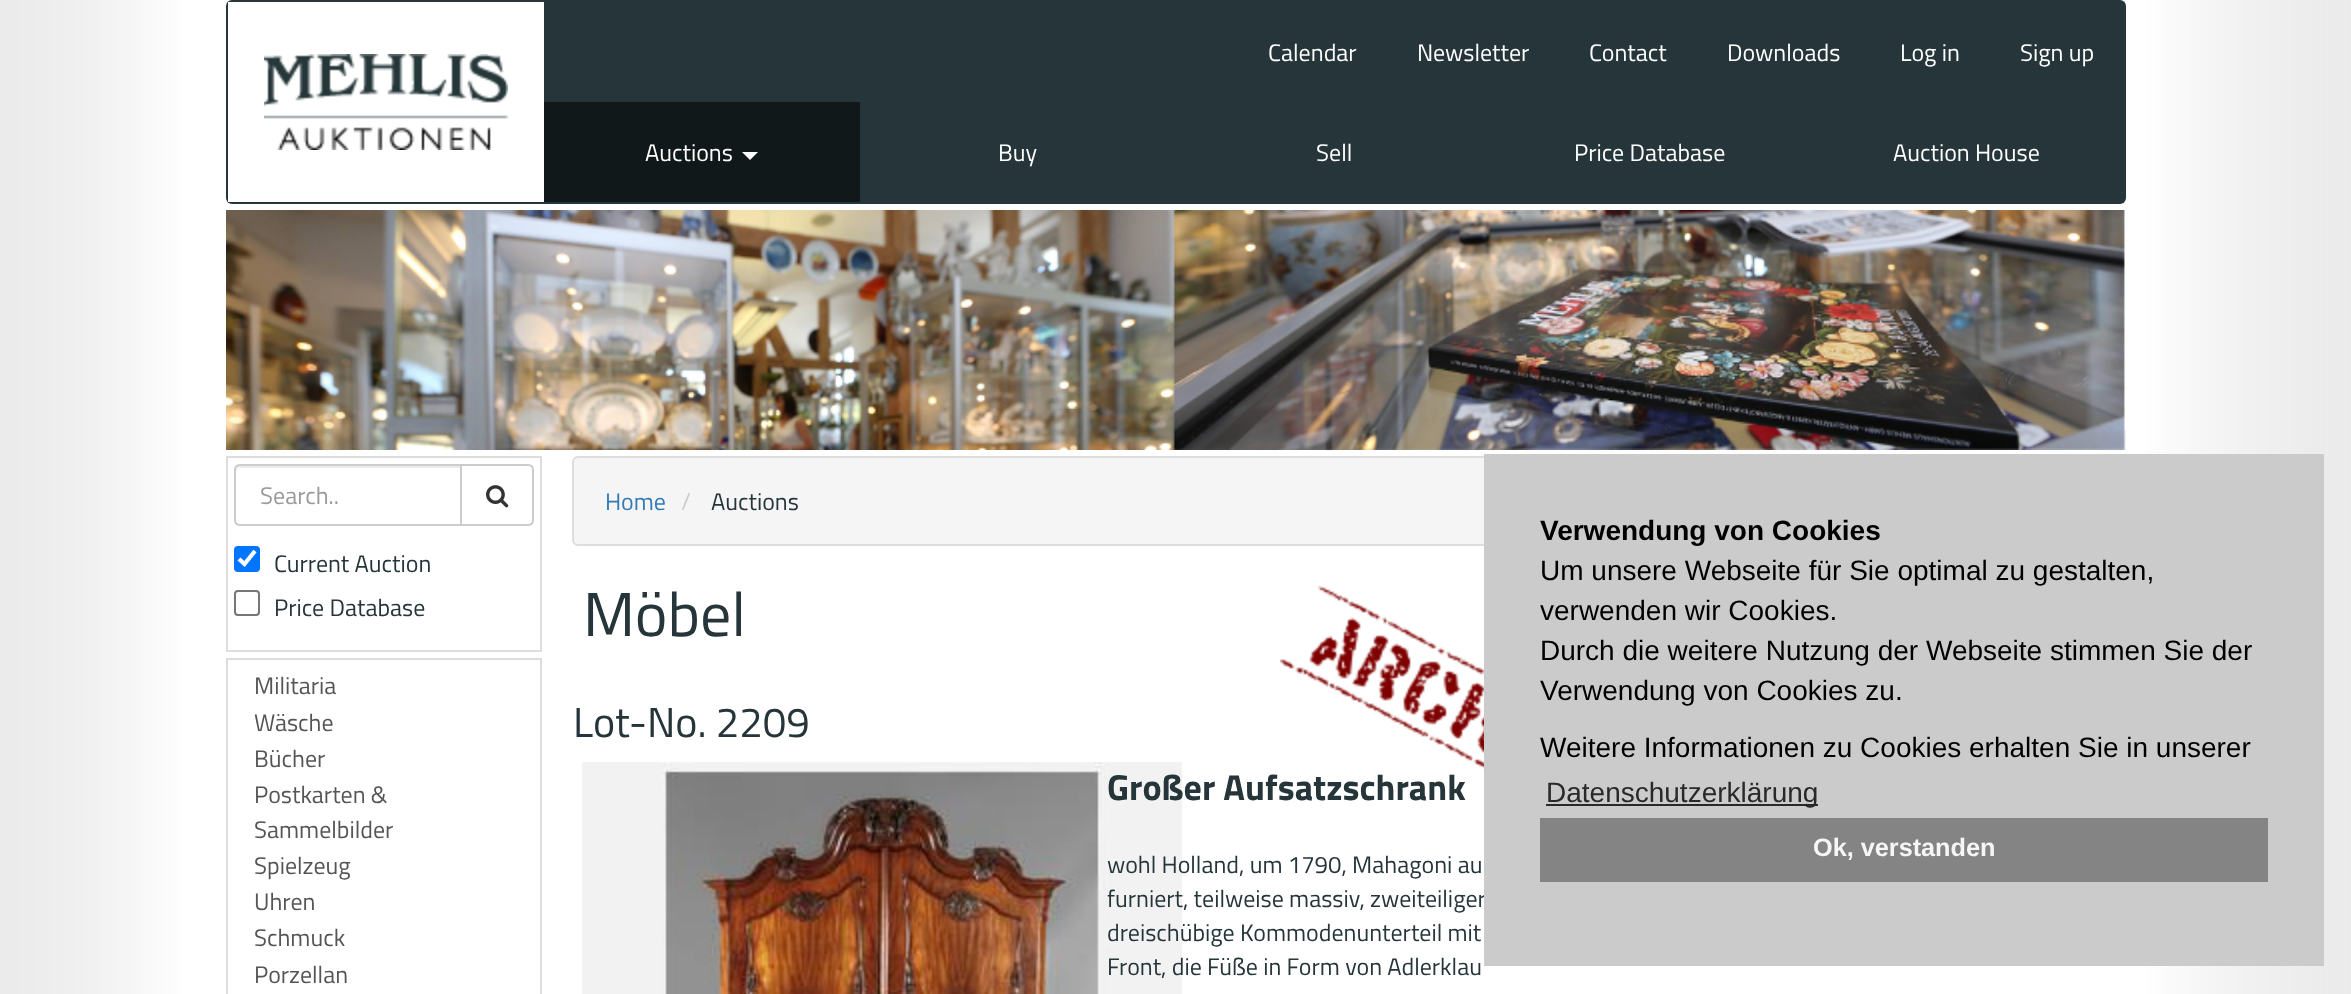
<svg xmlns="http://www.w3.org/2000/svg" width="2351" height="994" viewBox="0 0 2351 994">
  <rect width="100%" height="100%" fill="#ffffff"/>
  <image x="0" y="0" width="2351" height="994" href="img1.png"/>
  <rect x="226" y="0" width="1900" height="204" rx="6" fill="#253539"/>
  <rect x="228" y="2" width="316" height="200" fill="#ffffff"/>
  <image x="264" y="54" width="244" height="96" href="img2.png"/>
  <text x="1268" y="61" font-family="Titillium Web" font-size="24" fill="#ffffff">Calendar</text>
  <text x="1417" y="61" font-family="Titillium Web" font-size="24" fill="#ffffff">Newsletter</text>
  <text x="1589" y="61" font-family="Titillium Web" font-size="24" fill="#ffffff">Contact</text>
  <text x="1727" y="61" font-family="Titillium Web" font-size="24" fill="#ffffff">Downloads</text>
  <text x="1900" y="61" font-family="Titillium Web" font-size="24" fill="#ffffff">Log in</text>
  <text x="2020" y="61" font-family="Titillium Web" font-size="24" fill="#ffffff">Sign up</text>
  <rect x="544" y="102" width="316" height="100" fill="#11181a"/>
  <text x="645" y="161" font-family="Titillium Web" font-size="24" fill="#ffffff">Auctions</text>
  <path d="M742 152H758L750 160Z" fill="#ffffff"/>
  <text x="998" y="161" font-family="Titillium Web" font-size="24" fill="#ffffff">Buy</text>
  <text x="1316" y="161" font-family="Titillium Web" font-size="24" fill="#ffffff">Sell</text>
  <text x="1574" y="161" font-family="Titillium Web" font-size="24" fill="#ffffff">Price Database</text>
  <text x="1893" y="161" font-family="Titillium Web" font-size="24" fill="#ffffff">Auction House</text>
  <image x="1174" y="430" width="952" height="20" href="img3.png"/>
  <image x="226" y="210" width="1899" height="240" href="img4.png"/>
  <rect x="227" y="457" width="314" height="194" fill="none" stroke="#dddddd" stroke-width="2"/>
  <path d="M240 468H460V466H240C236 466 236 469 236 472C236 470 238 468 240 468Z" fill="#ececec"/>
  <path d="M240 465H461V525H240C237 525 235 523 235 520V470C235 467 237 465 240 465Z" fill="none" stroke="#cccccc" stroke-width="2"/>
  <text x="260" y="504" font-family="Titillium Web" font-size="24" fill="#999999">Search..</text>
  <path d="M461 465H528C531 465 533 467 533 470V520C533 523 531 525 528 525H461Z" fill="#ffffff" stroke="#cccccc" stroke-width="2"/>
  <image x="486" y="485" width="23" height="23" href="img5.png"/>
  <rect x="234" y="546" width="26" height="26" rx="4" fill="#0075ff"/>
  <path d="M239 559L244.5 564L255 551" fill="none" stroke="#ffffff" stroke-width="4.2"/>
  <text x="274" y="572" font-family="Titillium Web" font-size="24" fill="#253539">Current Auction</text>
  <rect x="235" y="591" width="24" height="24" rx="3" fill="none" stroke="#767676" stroke-width="2"/>
  <text x="274" y="616" font-family="Titillium Web" font-size="24" fill="#253539">Price Database</text>
  <rect x="227" y="659" width="314" height="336" fill="none" stroke="#dddddd" stroke-width="2"/>
  <text x="254" y="694" font-family="Titillium Web" font-size="24" fill="#555555">Militaria</text>
  <text x="254" y="731" font-family="Titillium Web" font-size="24" fill="#555555">Wäsche</text>
  <text x="254" y="767" font-family="Titillium Web" font-size="24" fill="#555555">Bücher</text>
  <text x="254" y="803" font-family="Titillium Web" font-size="24" fill="#555555">Postkarten &amp;</text>
  <text x="254" y="838" font-family="Titillium Web" font-size="24" fill="#555555">Sammelbilder</text>
  <text x="254" y="874" font-family="Titillium Web" font-size="24" fill="#555555">Spielzeug</text>
  <text x="254" y="910" font-family="Titillium Web" font-size="24" fill="#555555">Uhren</text>
  <text x="254" y="946" font-family="Titillium Web" font-size="24" fill="#555555">Schmuck</text>
  <text x="254" y="983" font-family="Titillium Web" font-size="24" fill="#555555">Porzellan</text>
  <rect x="573" y="457" width="1046" height="88" rx="5" fill="#f5f5f5" stroke="#dddddd" stroke-width="2"/>
  <text x="605" y="510" font-family="Titillium Web" font-size="24" fill="#337ab7">Home</text>
  <text x="681" y="510" font-family="Titillium Web" font-size="24" fill="#cccccc">/</text>
  <text x="711" y="510" font-family="Titillium Web" font-size="24" fill="#253539">Auctions</text>
  <text x="583" y="636" font-family="Titillium Web" font-size="62" fill="#253539">Möbel</text>
  <image x="1280" y="586" width="204" height="183" href="img6.png"/>
  <text x="573" y="737" font-family="Titillium Web" font-size="42" fill="#253539">Lot-No. 2209</text>
  <image x="582" y="762" width="600" height="232" href="img7.png"/>
  <text x="1107" y="800" font-family="Titillium Web" font-size="36" font-weight="bold" fill="#253539">Großer Aufsatzschrank</text>
  <text x="1107" y="873" font-family="Titillium Web" font-size="24" fill="#253539">wohl Holland, um 1790, Mahagoni au</text>
  <text x="1107" y="907" font-family="Titillium Web" font-size="24" fill="#253539">furniert, teilweise massiv, zweiteiliger</text>
  <text x="1107" y="941" font-family="Titillium Web" font-size="24" fill="#253539">dreischübige Kommodenunterteil mit</text>
  <text x="1107" y="975" font-family="Titillium Web" font-size="24" fill="#253539">Front, die Füße in Form von Adlerklau</text>
  <rect x="1484" y="454" width="840" height="512" fill="#cbcbcb"/>
  <text x="1540" y="540" font-family="Liberation Sans" font-size="28" font-weight="bold" fill="#000000">Verwendung von Cookies</text>
  <text x="1540" y="580" font-family="Liberation Sans" font-size="28" fill="#000000">Um unsere Webseite für Sie optimal zu gestalten,</text>
  <text x="1540" y="620" font-family="Liberation Sans" font-size="28" fill="#000000">verwenden wir Cookies.</text>
  <text x="1540" y="660" font-family="Liberation Sans" font-size="28" fill="#000000">Durch die weitere Nutzung der Webseite stimmen Sie der</text>
  <text x="1540" y="700" font-family="Liberation Sans" font-size="28" fill="#000000">Verwendung von Cookies zu.</text>
  <text x="1540" y="757" font-family="Liberation Sans" font-size="28" fill="#000000">Weitere Informationen zu Cookies erhalten Sie in unserer</text>
  <rect x="1546" y="804" width="272" height="2" fill="#292929"/>
  <text x="1546" y="802" font-family="Liberation Sans" font-size="28" fill="#292929">Datenschutzerklärung</text>
  <rect x="1540" y="818" width="728" height="64" fill="#848484"/>
  <text x="1813" y="856" font-family="Liberation Sans" font-size="25.25" font-weight="bold" fill="#f6f6f6">Ok, verstanden</text>
</svg>
